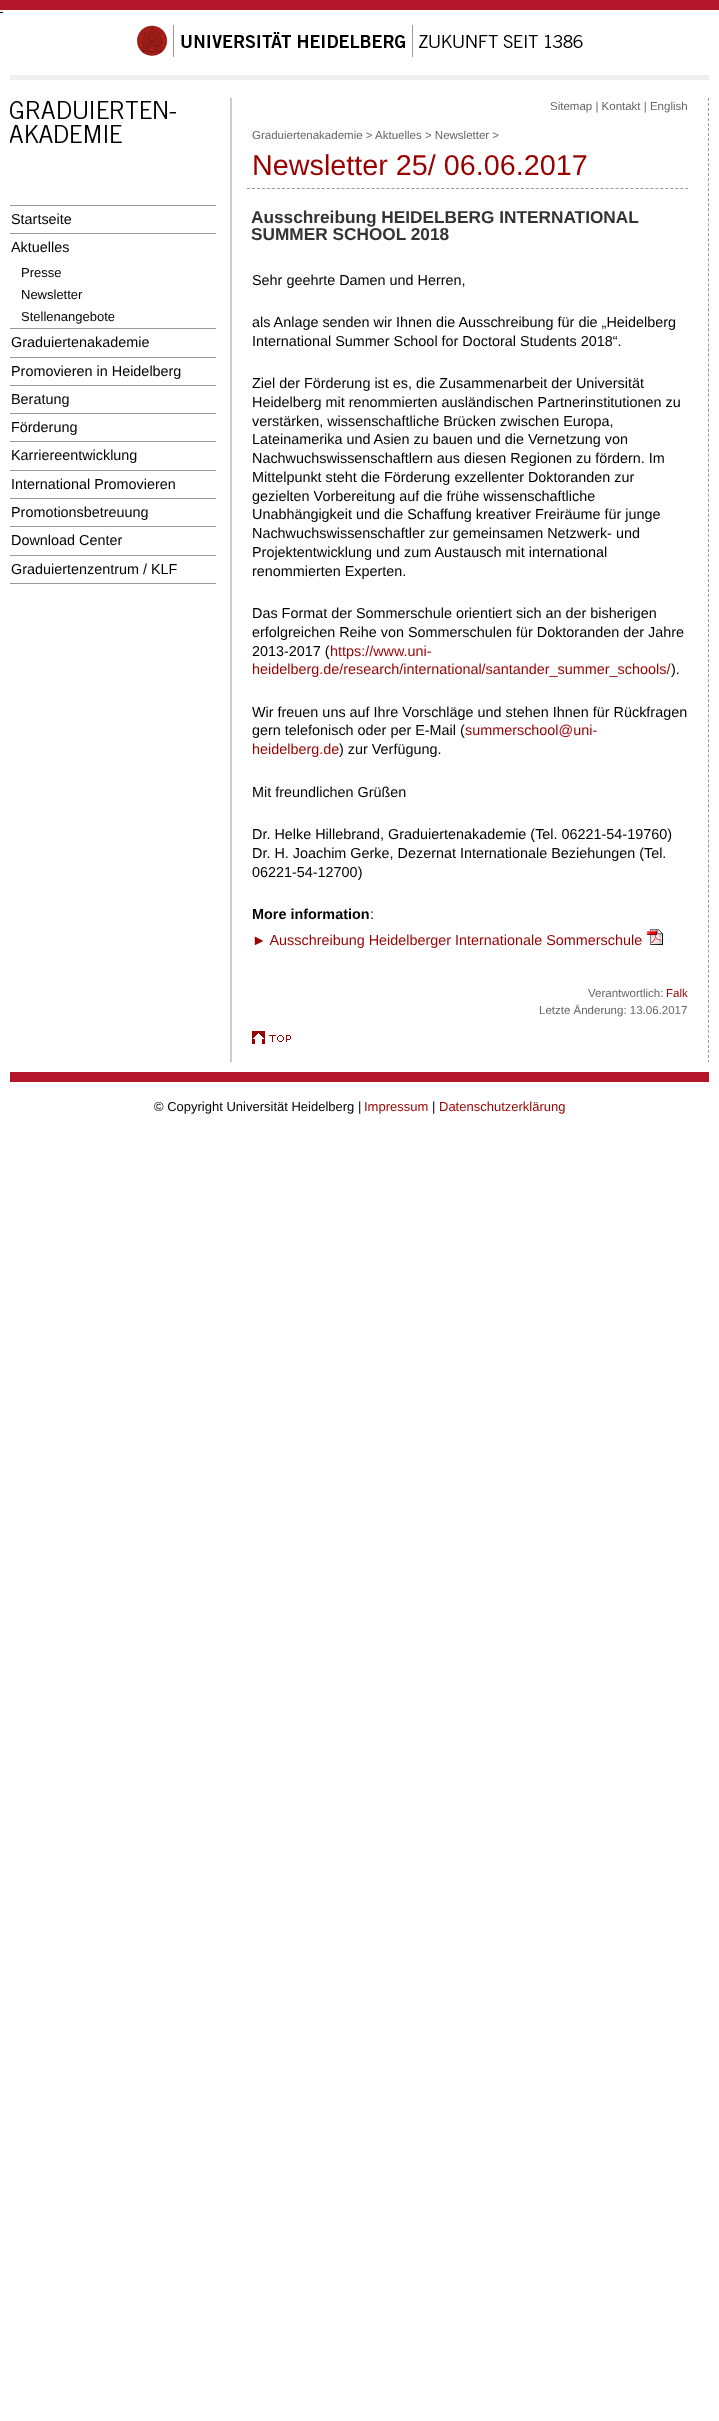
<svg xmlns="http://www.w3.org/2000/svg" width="719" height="2421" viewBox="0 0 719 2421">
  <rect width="100%" height="100%" fill="#ffffff"/>
  <rect x="0" y="0" width="719" height="10" fill="#b5152b"/>
  <rect x="0" y="12" width="3" height="1" fill="#000000"/>
  <image x="136" y="25" width="447" height="32" href="img1.png"/>
  <rect x="10" y="75" width="699" height="5" fill="#efefef"/>
  <image x="10" y="101" width="166" height="42" href="img2.png"/>
  <rect x="10" y="205" width="206" height="1" fill="#999999"/>
  <text x="11" y="224" font-family="Liberation Sans" font-size="14.4" fill="#000000">Startseite</text>
  <rect x="10" y="233" width="206" height="1" fill="#999999"/>
  <text x="11" y="252" font-family="Liberation Sans" font-size="14.4" fill="#000000">Aktuelles</text>
  <text x="21" y="277" font-family="Liberation Sans" font-size="13" fill="#000000">Presse</text>
  <text x="21" y="299" font-family="Liberation Sans" font-size="13" fill="#000000">Newsletter</text>
  <text x="21" y="321" font-family="Liberation Sans" font-size="13" fill="#000000">Stellenangebote</text>
  <rect x="10" y="328" width="206" height="1" fill="#999999"/>
  <text x="11" y="347" font-family="Liberation Sans" font-size="14.4" fill="#000000">Graduiertenakademie</text>
  <rect x="10" y="357" width="206" height="1" fill="#999999"/>
  <text x="11" y="376" font-family="Liberation Sans" font-size="14.4" fill="#000000">Promovieren in Heidelberg</text>
  <rect x="10" y="385" width="206" height="1" fill="#999999"/>
  <text x="11" y="404" font-family="Liberation Sans" font-size="14.4" fill="#000000">Beratung</text>
  <rect x="10" y="413" width="206" height="1" fill="#999999"/>
  <text x="11" y="432" font-family="Liberation Sans" font-size="14.4" fill="#000000">Förderung</text>
  <rect x="10" y="441" width="206" height="1" fill="#999999"/>
  <text x="11" y="460" font-family="Liberation Sans" font-size="14.4" fill="#000000">Karriereentwicklung</text>
  <rect x="10" y="470" width="206" height="1" fill="#999999"/>
  <text x="11" y="489" font-family="Liberation Sans" font-size="14.4" fill="#000000">International Promovieren</text>
  <rect x="10" y="498" width="206" height="1" fill="#999999"/>
  <text x="11" y="517" font-family="Liberation Sans" font-size="14.4" fill="#000000">Promotionsbetreuung</text>
  <rect x="10" y="526" width="206" height="1" fill="#999999"/>
  <text x="11" y="545" font-family="Liberation Sans" font-size="14.4" fill="#000000">Download Center</text>
  <rect x="10" y="555" width="206" height="1" fill="#999999"/>
  <text x="11" y="574" font-family="Liberation Sans" font-size="14.4" fill="#000000">Graduiertenzentrum / KLF</text>
  <rect x="10" y="583" width="206" height="1" fill="#999999"/>
  <path d="M708.5 98V1062" fill="none" stroke="#999999" stroke-dasharray="3 2.01"/>
  <rect x="230" y="98" width="2" height="964" fill="#cccccc"/>
  <text x="550" y="110" font-family="Liberation Sans" font-size="11.5" fill="#666666">Sitemap | Kontakt | English</text>
  <text x="252" y="139" font-family="Liberation Sans" font-size="11.5" fill="#666666">Graduiertenakademie &gt; Aktuelles &gt; Newsletter &gt;</text>
  <path d="M247 188.5H688" fill="none" stroke="#999999" stroke-dasharray="3 1.98"/>
  <text x="252" y="175" font-family="Liberation Sans" font-size="28.75" fill="#990000">Newsletter 25/ 06.06.2017</text>
  <text x="251" y="223" font-family="Liberation Sans" font-size="17.25" font-weight="bold" fill="#333333">Ausschreibung HEIDELBERG INTERNATIONAL</text>
  <text x="251" y="240" font-family="Liberation Sans" font-size="17.25" font-weight="bold" fill="#333333">SUMMER SCHOOL 2018</text>
  <text x="252" y="285" font-family="Liberation Sans" font-size="14.4" fill="#000000">Sehr geehrte Damen und Herren,</text>
  <text x="252" y="327" font-family="Liberation Sans" font-size="14.4" fill="#000000">als Anlage senden wir Ihnen die Ausschreibung für die „Heidelberg</text>
  <text x="252" y="346" font-family="Liberation Sans" font-size="14.4" fill="#000000">International Summer School for Doctoral Students 2018“.</text>
  <text x="252" y="388" font-family="Liberation Sans" font-size="14.4" fill="#000000">Ziel der Förderung ist es, die Zusammenarbeit der Universität</text>
  <text x="252" y="407" font-family="Liberation Sans" font-size="14.4" fill="#000000">Heidelberg mit renommierten ausländischen Partnerinstitutionen zu</text>
  <text x="252" y="426" font-family="Liberation Sans" font-size="14.4" fill="#000000">verstärken, wissenschaftliche Brücken zwischen Europa,</text>
  <text x="252" y="444" font-family="Liberation Sans" font-size="14.4" fill="#000000">Lateinamerika und Asien zu bauen und die Vernetzung von</text>
  <text x="252" y="463" font-family="Liberation Sans" font-size="14.4" fill="#000000">Nachwuchswissenschaftlern aus diesen Regionen zu fördern. Im</text>
  <text x="252" y="482" font-family="Liberation Sans" font-size="14.4" fill="#000000">Mittelpunkt steht die Förderung exzellenter Doktoranden zur</text>
  <text x="252" y="501" font-family="Liberation Sans" font-size="14.4" fill="#000000">gezielten Vorbereitung auf die frühe wissenschaftliche</text>
  <text x="252" y="519" font-family="Liberation Sans" font-size="14.4" fill="#000000">Unabhängigkeit und die Schaffung kreativer Freiräume für junge</text>
  <text x="252" y="538" font-family="Liberation Sans" font-size="14.4" fill="#000000">Nachwuchswissenschaftler zur gemeinsamen Netzwerk- und</text>
  <text x="252" y="557" font-family="Liberation Sans" font-size="14.4" fill="#000000">Projektentwicklung und zum Austausch mit international</text>
  <text x="252" y="576" font-family="Liberation Sans" font-size="14.4" fill="#000000">renommierten Experten.</text>
  <text x="252" y="618" font-family="Liberation Sans" font-size="14.4" fill="#000000">Das Format der Sommerschule orientiert sich an der bisherigen</text>
  <text x="252" y="637" font-family="Liberation Sans" font-size="14.4" fill="#000000">erfolgreichen Reihe von Sommerschulen für Doktoranden der Jahre</text>
  <text x="252" y="656" font-family="Liberation Sans" font-size="14.4" fill="#000000">2013-2017 (</text>
  <text x="330" y="656" font-family="Liberation Sans" font-size="14.4" fill="#990000">https://www.uni-</text>
  <text x="252" y="674" font-family="Liberation Sans" font-size="14.4" fill="#990000">heidelberg.de/research/international/santander_summer_schools/</text>
  <text x="671" y="674" font-family="Liberation Sans" font-size="14.4" fill="#000000">).</text>
  <text x="252" y="717" font-family="Liberation Sans" font-size="14.4" fill="#000000">Wir freuen uns auf Ihre Vorschläge und stehen Ihnen für Rückfragen</text>
  <text x="252" y="735" font-family="Liberation Sans" font-size="14.4" fill="#000000">gern telefonisch oder per E-Mail (</text>
  <text x="465" y="735" font-family="Liberation Sans" font-size="14.4" fill="#990000">summerschool@uni-</text>
  <text x="252" y="754" font-family="Liberation Sans" font-size="14.4" fill="#990000">heidelberg.de</text>
  <text x="339" y="754" font-family="Liberation Sans" font-size="14.4" fill="#000000">) zur Verfügung.</text>
  <text x="252" y="797" font-family="Liberation Sans" font-size="14.4" fill="#000000">Mit freundlichen Grüßen</text>
  <text x="252" y="839" font-family="Liberation Sans" font-size="14.4" fill="#000000">Dr. Helke Hillebrand, Graduiertenakademie (Tel. 06221-54-19760)</text>
  <text x="252" y="858" font-family="Liberation Sans" font-size="14.4" fill="#000000">Dr. H. Joachim Gerke, Dezernat Internationale Beziehungen (Tel.</text>
  <text x="252" y="877" font-family="Liberation Sans" font-size="14.4" fill="#000000">06221-54-12700)</text>
  <text x="252" y="919" font-family="Liberation Sans" font-size="14.4" font-weight="bold" fill="#000000">More information</text>
  <text x="370" y="919" font-family="Liberation Sans" font-size="14.4" fill="#000000">:</text>
  <text x="252" y="945" font-family="Liberation Sans" font-size="14.4" fill="#990000">► Ausschreibung Heidelberger Internationale Sommerschule</text>
  <image x="647" y="929" width="16" height="16" href="img3.png"/>
  <text x="588" y="997" font-family="Liberation Sans" font-size="11.5" fill="#666666">Verantwortlich:</text>
  <text x="666" y="997" font-family="Liberation Sans" font-size="11.5" fill="#990000">Falk</text>
  <text x="539" y="1014" font-family="Liberation Sans" font-size="11.5" fill="#666666">Letzte Änderung: 13.06.2017</text>
  <image x="252" y="1031" width="39" height="13" href="img4.png"/>
  <rect x="10" y="1072" width="699" height="10" fill="#b5152b"/>
  <text x="154" y="1111" font-family="Liberation Sans" font-size="13" fill="#000000">© Copyright Universität Heidelberg |</text>
  <text x="364" y="1111" font-family="Liberation Sans" font-size="13" fill="#990000">Impressum</text>
  <text x="432" y="1111" font-family="Liberation Sans" font-size="13" fill="#000000">|</text>
  <text x="439" y="1111" font-family="Liberation Sans" font-size="13" fill="#990000">Datenschutzerklärung</text>
</svg>
